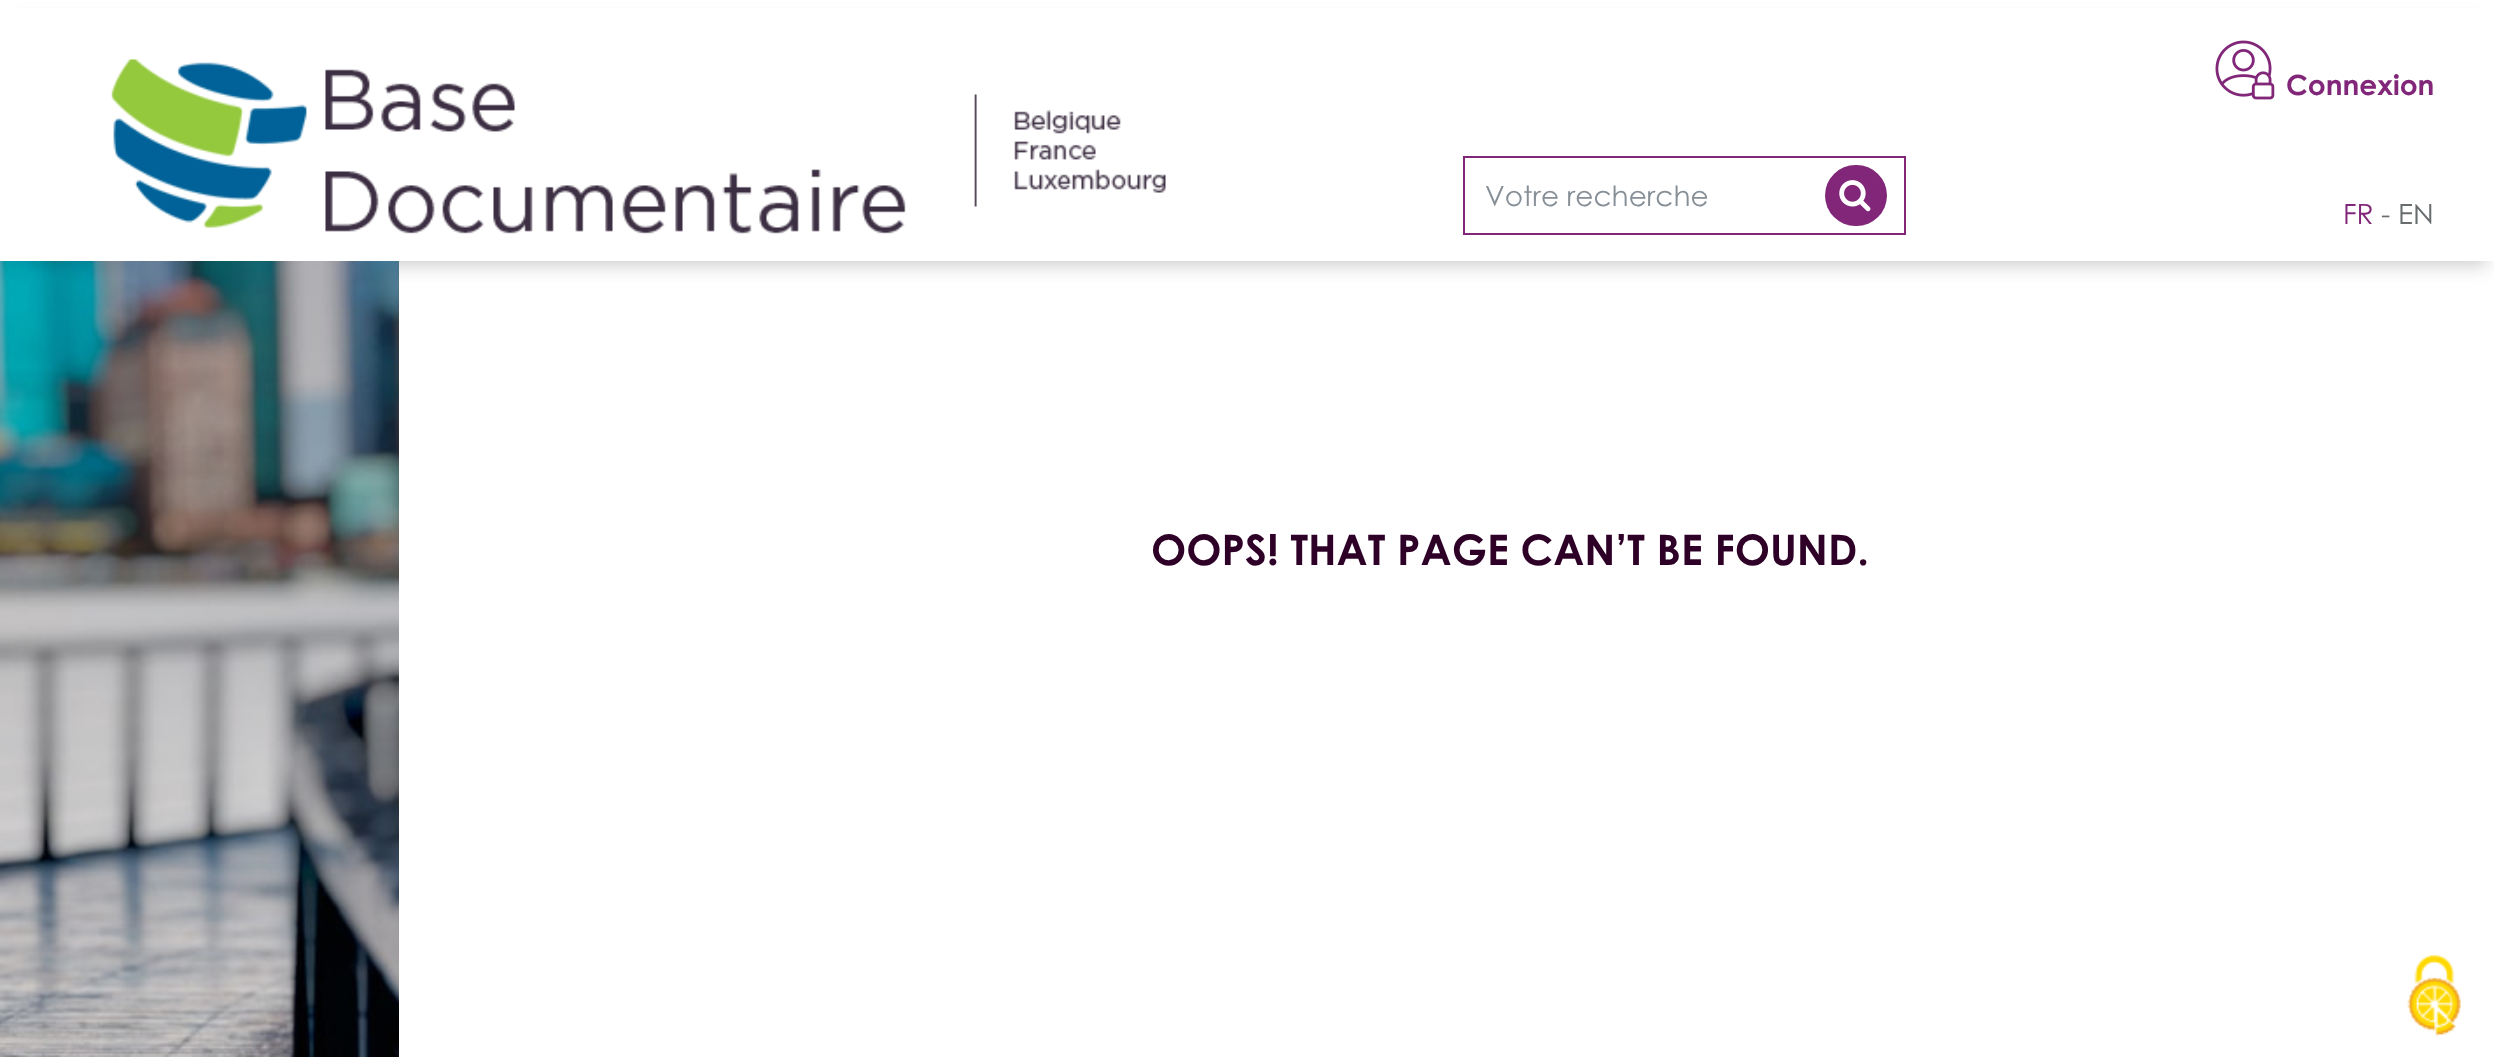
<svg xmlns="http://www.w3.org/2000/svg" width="2494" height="1057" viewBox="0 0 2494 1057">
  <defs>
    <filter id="blur1" x="-50%" y="-200%" width="200%" height="500%"><feGaussianBlur stdDeviation="9"/></filter>
  </defs>
  <rect width="100%" height="100%" fill="#ffffff"/>
  <rect x="9" y="23" width="2478" height="243" fill="#cfcfcf" filter="url(#blur1)"/>
  <rect x="0" y="8" width="2494" height="253" fill="#ffffff"/>
  <image x="111" y="59" width="1055" height="175" href="img1.png"/>
  <rect x="1463" y="156" width="443" height="2" fill="#812678"/>
  <rect x="1463" y="233" width="347" height="2" fill="#812678"/>
  <rect x="1463" y="156" width="2" height="79" fill="#812678"/>
  <text x="1485" y="206" font-family="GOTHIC" font-size="28" fill="#868e96">Votre recherche</text>
  <rect x="1904" y="156" width="2" height="79" fill="#812678"/>
  <rect x="1808" y="233" width="98" height="2" fill="#812678"/>
  <rect x="1825" y="165" width="62" height="61" rx="30.5" fill="#812678"/>
  <image x="1839" y="180" width="32" height="32" href="img2.png"/>
  <image x="2215" y="40" width="60" height="60" href="img3.png"/>
  <text x="2286" y="95" font-family="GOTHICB" font-size="28" font-weight="bold" fill="#812678">Connexion</text>
  <text x="2343" y="224" font-family="GOTHIC" font-size="28" fill="#812678">FR</text>
  <text x="2381" y="224" font-family="GOTHIC" font-size="28" fill="#676c6e">- EN</text>
  <image x="0" y="261" width="399" height="796" href="img4.png"/>
  <text x="1151" y="565" font-family="GOTHICB" font-size="42" font-weight="bold" fill="#2e0027">OOPS! THAT PAGE CAN’T BE FOUND.</text>
  <image x="2407" y="955" width="54" height="82" href="img5.png"/>
</svg>
